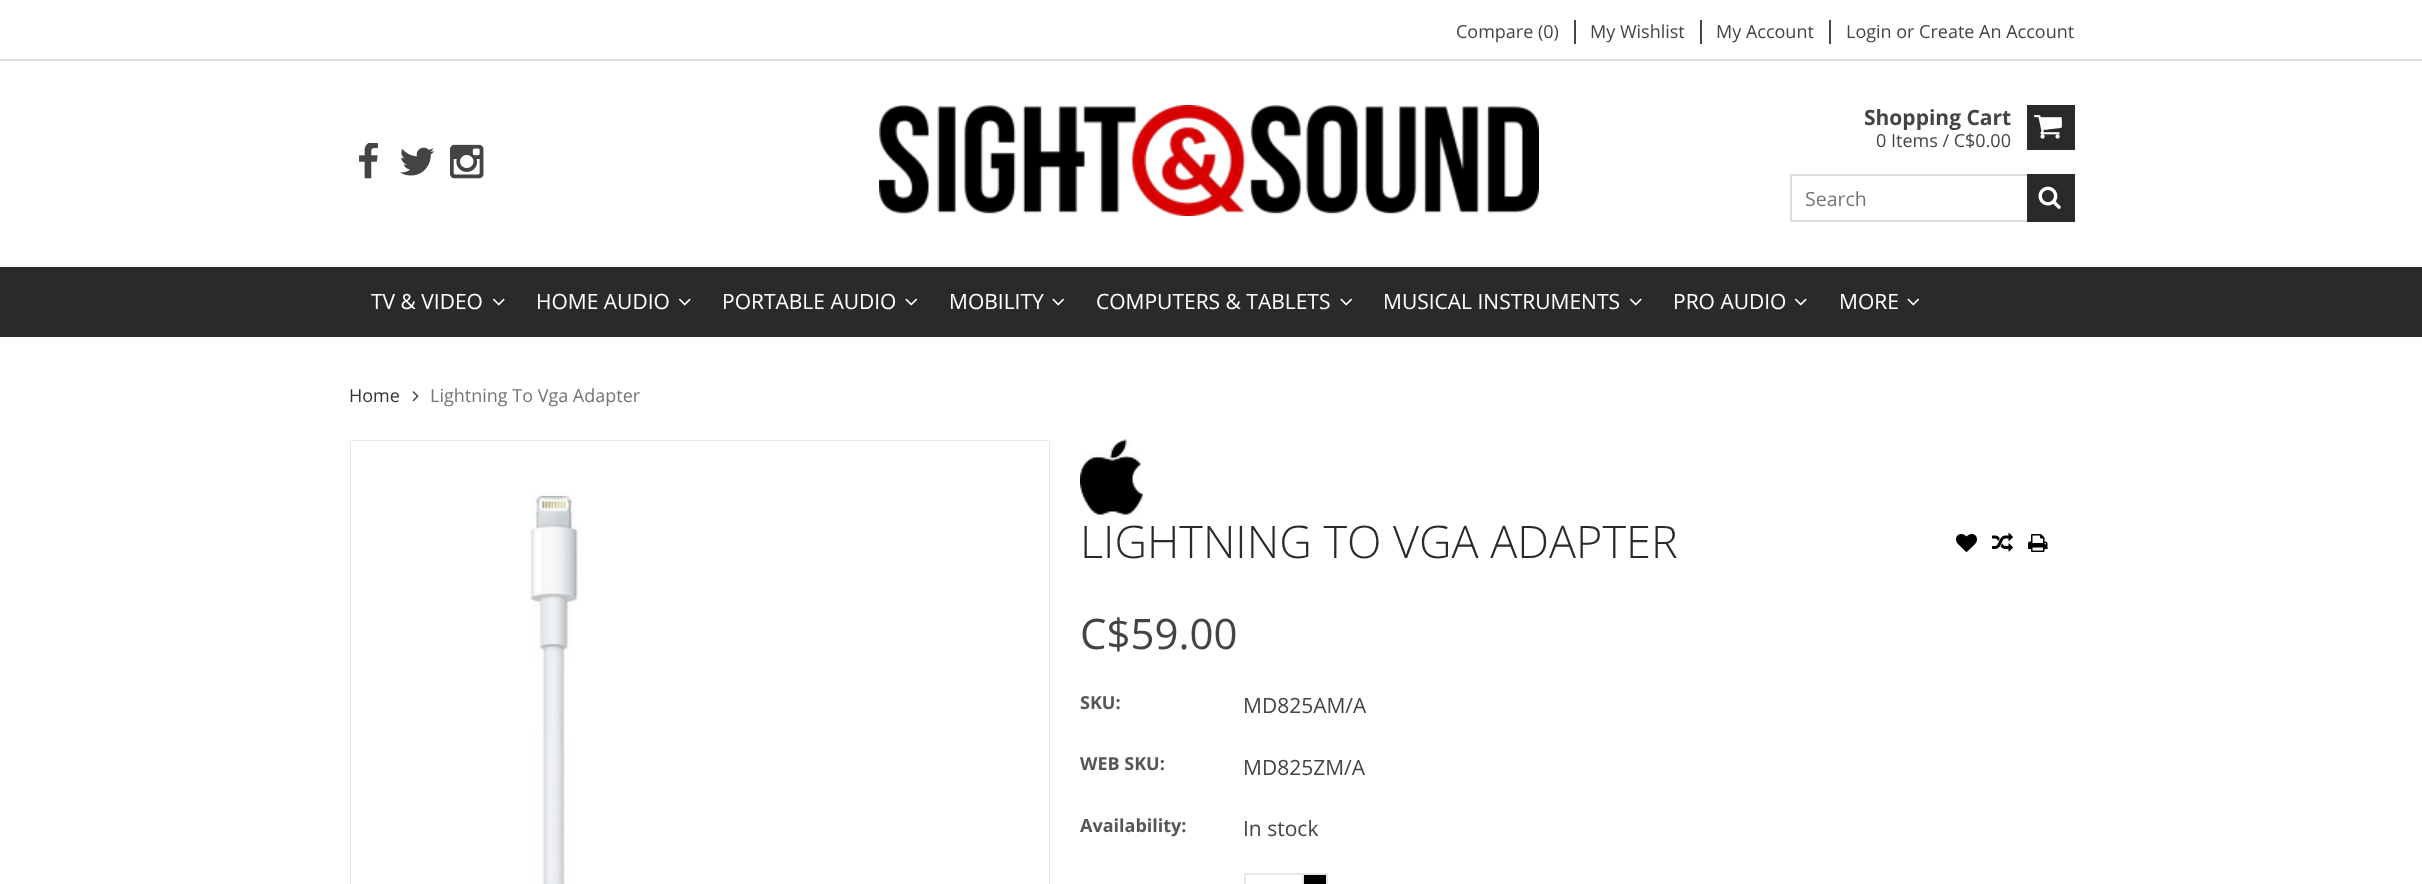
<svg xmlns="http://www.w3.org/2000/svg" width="2422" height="884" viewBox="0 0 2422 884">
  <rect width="100%" height="100%" fill="#ffffff"/>
  <rect x="0" y="59" width="2422" height="2" fill="#dddddd"/>
  <rect x="1574" y="20" width="2" height="24" fill="#444444"/>
  <text x="1456" y="38" font-family="Open Sans" font-size="18" fill="#444444">Compare (0)</text>
  <rect x="1700" y="20" width="2" height="24" fill="#444444"/>
  <text x="1590" y="38" font-family="Open Sans" font-size="18" fill="#444444">My Wishlist</text>
  <rect x="1829" y="20" width="2" height="24" fill="#444444"/>
  <text x="1716" y="38" font-family="Open Sans" font-size="18" fill="#444444">My Account</text>
  <text x="1846" y="38" font-family="Open Sans" font-size="18" fill="#444444">Login or Create An Account</text>
  <image x="359" y="143" width="19" height="36" href="img1.png"/>
  <image x="400" y="147" width="35" height="29" href="img2.png"/>
  <image x="450" y="144" width="34" height="35" href="img3.png"/>
  <image x="879" y="105" width="660" height="111" href="img4.png"/>
  <text x="1864" y="125" font-family="Open Sans" font-size="21" font-weight="bold" fill="#444444">Shopping Cart</text>
  <text x="1876" y="147" font-family="Open Sans" font-size="18" fill="#444444">0 Items / C$0.00</text>
  <rect x="2027" y="105" width="48" height="45" fill="#2a2a2a"/>
  <image x="2034" y="115" width="28" height="24" href="img5.png"/>
  <rect x="1791" y="175" width="283" height="46" fill="none" stroke="#dddddd" stroke-width="2"/>
  <text x="1805" y="206" font-family="Open Sans" font-size="19.5" fill="#757575">Search</text>
  <rect x="2027" y="174" width="48" height="48" fill="#2a2a2a"/>
  <image x="2038" y="186" width="23" height="23" href="img6.png"/>
  <rect x="0" y="267" width="2422" height="70" fill="#2a2a2a"/>
  <text x="371" y="309" font-family="Open Sans" font-size="21" fill="#ffffff">TV &amp; VIDEO</text>
  <image x="492" y="298" width="13" height="8" href="img7.png"/>
  <text x="536" y="309" font-family="Open Sans" font-size="21" fill="#ffffff">HOME AUDIO</text>
  <image x="678" y="298" width="13" height="8" href="img7.png"/>
  <text x="722" y="309" font-family="Open Sans" font-size="21" fill="#ffffff">PORTABLE AUDIO</text>
  <image x="905" y="298" width="13" height="8" href="img8.png"/>
  <text x="949" y="309" font-family="Open Sans" font-size="21" fill="#ffffff">MOBILITY</text>
  <image x="1052" y="298" width="13" height="8" href="img8.png"/>
  <text x="1096" y="309" font-family="Open Sans" font-size="21" fill="#ffffff">COMPUTERS &amp; TABLETS</text>
  <image x="1340" y="298" width="13" height="8" href="img8.png"/>
  <text x="1383" y="309" font-family="Open Sans" font-size="21" fill="#ffffff">MUSICAL INSTRUMENTS</text>
  <image x="1629" y="298" width="13" height="8" href="img7.png"/>
  <text x="1673" y="309" font-family="Open Sans" font-size="21" fill="#ffffff">PRO AUDIO</text>
  <image x="1794" y="298" width="13" height="8" href="img7.png"/>
  <text x="1839" y="309" font-family="Open Sans" font-size="21" fill="#ffffff">MORE</text>
  <image x="1907" y="298" width="13" height="8" href="img8.png"/>
  <text x="349" y="402" font-family="Open Sans" font-size="18" fill="#333333">Home</text>
  <image x="412" y="391" width="7" height="11" href="img9.png"/>
  <text x="430" y="402" font-family="Open Sans" font-size="18" fill="#757575">Lightning To Vga Adapter</text>
  <rect x="351" y="441" width="698" height="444" fill="none" stroke="#e7e7e7" stroke-width="2"/>
  <rect x="351" y="441" width="698" height="443" fill="#ffffff"/>
  <image x="528" y="490" width="53" height="394" href="img10.png"/>
  <image x="1080" y="439" width="63" height="76" href="img11.png"/>
  <text x="1080" y="558" font-family="Open Sans" font-size="45" font-weight="300" fill="#2a2a2a">LIGHTNING TO VGA ADAPTER</text>
  <image x="1956" y="534" width="21" height="18" href="img12.png"/>
  <image x="1992" y="532" width="21" height="20" href="img13.png"/>
  <image x="2028" y="534" width="20" height="18" href="img14.png"/>
  <text x="1080" y="649" font-family="Open Sans" font-size="42" fill="#444444">C$59.00</text>
  <text x="1080" y="709" font-family="Open Sans" font-size="18" font-weight="bold" fill="#565656">SKU:</text>
  <text x="1243" y="713" font-family="Open Sans" font-size="21" fill="#444444">MD825AM/A</text>
  <text x="1080" y="770" font-family="Open Sans" font-size="18" font-weight="bold" fill="#565656">WEB SKU:</text>
  <text x="1243" y="775" font-family="Open Sans" font-size="21" fill="#444444">MD825ZM/A</text>
  <text x="1080" y="832" font-family="Open Sans" font-size="18" font-weight="bold" fill="#565656">Availability:</text>
  <text x="1243" y="836" font-family="Open Sans" font-size="21" fill="#444444">In stock</text>
  <rect x="1245" y="874" width="58" height="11" fill="none" stroke="#e7e7e7" stroke-width="2"/>
  <rect x="1304" y="875" width="22" height="9" fill="#000000"/>
  <rect x="1304" y="873" width="24" height="2" fill="#e5e5e5"/>
  <rect x="1326" y="873" width="2" height="11" fill="#e5e5e5"/>
</svg>
